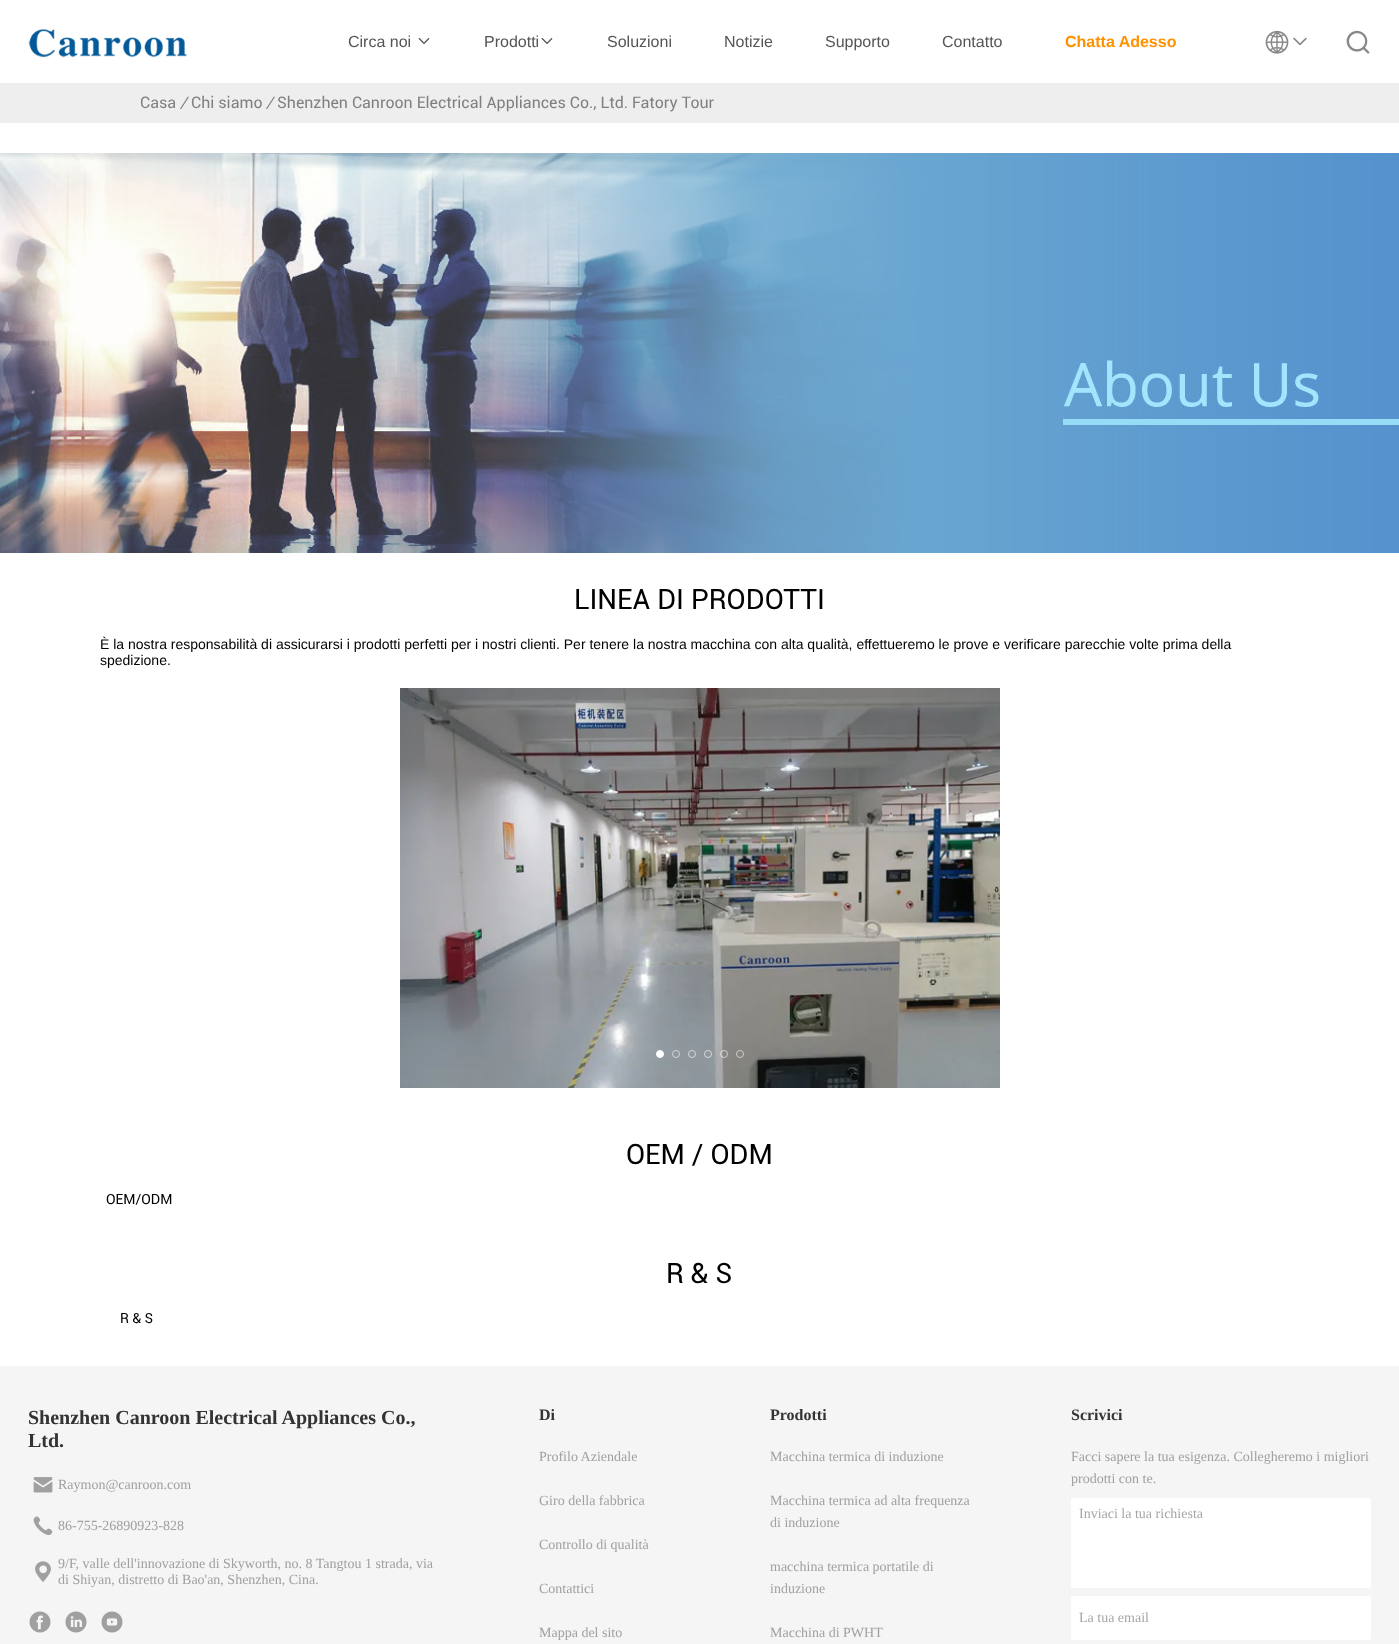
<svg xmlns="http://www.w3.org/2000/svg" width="1399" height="1644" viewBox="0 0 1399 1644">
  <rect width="100%" height="100%" fill="#ffffff"/>
  <image x="28" y="29" width="159" height="29" href="img1.png"/>
  <text x="348" y="47" font-family="Liberation Sans" font-size="16" fill="#555555">Circa noi</text>
  <image x="418" y="38" width="12" height="6" href="img2.png"/>
  <text x="484" y="47" font-family="Liberation Sans" font-size="16" fill="#555555">Prodotti</text>
  <image x="541" y="38" width="12" height="6" href="img2.png"/>
  <text x="607" y="47" font-family="Liberation Sans" font-size="16" fill="#555555">Soluzioni</text>
  <text x="724" y="47" font-family="Liberation Sans" font-size="16" fill="#555555">Notizie</text>
  <text x="825" y="47" font-family="Liberation Sans" font-size="16" fill="#555555">Supporto</text>
  <text x="942" y="47" font-family="Liberation Sans" font-size="16" fill="#555555">Contatto</text>
  <text x="1065" y="47" font-family="Liberation Sans" font-size="16" font-weight="bold" fill="#ff9000">Chatta Adesso</text>
  <image x="1265" y="30" width="24" height="24" href="img3.png"/>
  <image x="1293" y="37" width="14" height="9" href="img4.png"/>
  <image x="1346" y="30" width="24" height="24" href="img5.png"/>
  <rect x="0" y="83" width="1399" height="40" fill="#eeeeee"/>
  <text x="140" y="108" font-family="Roboto" font-size="16" fill="#808080">Casa</text>
  <text x="180" y="108" font-family="Roboto" font-size="16" font-style="italic" fill="#808080">/</text>
  <text x="191" y="108" font-family="Roboto" font-size="16" fill="#808080">Chi siamo</text>
  <text x="266" y="108" font-family="Roboto" font-size="16" font-style="italic" fill="#808080">/</text>
  <text x="277" y="108" font-family="Roboto" font-size="16" fill="#808080">Shenzhen Canroon Electrical Appliances Co., Ltd. Fatory Tour</text>
  <image x="0" y="153" width="1399" height="400" href="img6.png"/>
  <text x="574" y="609" font-family="Roboto" font-size="28" fill="#000000">LINEA DI PRODOTTI</text>
  <text x="100" y="649" font-family="Liberation Sans" font-size="14" fill="#000000">È la nostra responsabilità di assicurarsi i prodotti perfetti per i nostri clienti. Per tenere la nostra macchina con alta qualità, effettueremo le prove e verificare parecchie volte prima della</text>
  <text x="100" y="665" font-family="Liberation Sans" font-size="14" fill="#000000">spedizione.</text>
  <image x="400" y="688" width="600" height="400" href="img7.png"/>
  <circle cx="660" cy="1054" r="3.5" fill="#ffffff" stroke="#ffffff"/>
  <circle cx="676" cy="1054" r="3.5" fill="none" stroke="#d3d6d8"/>
  <circle cx="692" cy="1054" r="3.5" fill="none" stroke="#d3d6d8"/>
  <circle cx="708" cy="1054" r="3.5" fill="none" stroke="#ffffff" stroke-opacity="0.6"/>
  <circle cx="724" cy="1054" r="3.5" fill="none" stroke="#ffffff" stroke-opacity="0.6"/>
  <circle cx="740" cy="1054" r="3.5" fill="none" stroke="#cececc"/>
  <text x="626" y="1164" font-family="Roboto" font-size="28" fill="#000000">OEM / ODM</text>
  <text x="106" y="1204" font-family="Roboto" font-size="14" fill="#000000">OEM/ODM</text>
  <text x="666" y="1283" font-family="Roboto" font-size="28" fill="#000000">R &amp; S</text>
  <text x="120" y="1323" font-family="Roboto" font-size="14" fill="#000000">R &amp; S</text>
  <rect x="0" y="1366" width="1399" height="278" fill="#f5f5f5"/>
  <text x="28" y="1424" font-family="Liberation Serif" font-size="20" font-weight="bold" fill="#333333">Shenzhen Canroon Electrical Appliances Co.,</text>
  <text x="28" y="1447" font-family="Liberation Serif" font-size="20" font-weight="bold" fill="#333333">Ltd.</text>
  <image x="33" y="1477" width="20" height="16" href="img8.png"/>
  <text x="58" y="1489" font-family="Liberation Serif" font-size="14" fill="#a0a0a0">Raymon@canroon.com</text>
  <image x="33" y="1516" width="20" height="19" href="img9.png"/>
  <text x="58" y="1530" font-family="Liberation Serif" font-size="14" fill="#a0a0a0">86-755-26890923-828</text>
  <image x="35" y="1561" width="16" height="21" href="img10.png"/>
  <text x="58" y="1568" font-family="Liberation Serif" font-size="14" fill="#a0a0a0">9/F, valle dell'innovazione di Skyworth, no. 8 Tangtou 1 strada, via</text>
  <text x="58" y="1584" font-family="Liberation Serif" font-size="14" fill="#a0a0a0">di Shiyan, distretto di Bao'an, Shenzhen, Cina.</text>
  <image x="29" y="1611" width="22" height="22" href="img11.png"/>
  <image x="65" y="1611" width="22" height="22" href="img12.png"/>
  <image x="101" y="1611" width="22" height="22" href="img13.png"/>
  <text x="539" y="1420" font-family="Liberation Serif" font-size="16" font-weight="bold" fill="#333333">Di</text>
  <text x="539" y="1461" font-family="Liberation Serif" font-size="14" fill="#a0a0a0">Profilo Aziendale</text>
  <text x="539" y="1505" font-family="Liberation Serif" font-size="14" fill="#a0a0a0">Giro della fabbrica</text>
  <text x="539" y="1549" font-family="Liberation Serif" font-size="14" fill="#a0a0a0">Controllo di qualità</text>
  <text x="539" y="1593" font-family="Liberation Serif" font-size="14" fill="#a0a0a0">Contattici</text>
  <text x="539" y="1637" font-family="Liberation Serif" font-size="14" fill="#a0a0a0">Mappa del sito</text>
  <text x="770" y="1420" font-family="Liberation Serif" font-size="16" font-weight="bold" fill="#333333">Prodotti</text>
  <text x="770" y="1461" font-family="Liberation Serif" font-size="14" fill="#a0a0a0">Macchina termica di induzione</text>
  <text x="770" y="1505" font-family="Liberation Serif" font-size="14" fill="#a0a0a0">Macchina termica ad alta frequenza</text>
  <text x="770" y="1527" font-family="Liberation Serif" font-size="14" fill="#a0a0a0">di induzione</text>
  <text x="770" y="1571" font-family="Liberation Serif" font-size="14" fill="#a0a0a0">macchina termica portatile di</text>
  <text x="770" y="1593" font-family="Liberation Serif" font-size="14" fill="#a0a0a0">induzione</text>
  <text x="770" y="1637" font-family="Liberation Serif" font-size="14" fill="#a0a0a0">Macchina di PWHT</text>
  <text x="1071" y="1420" font-family="Liberation Serif" font-size="16" font-weight="bold" fill="#333333">Scrivici</text>
  <text x="1071" y="1461" font-family="Liberation Serif" font-size="14" fill="#a0a0a0">Facci sapere la tua esigenza. Collegheremo i migliori</text>
  <text x="1071" y="1483" font-family="Liberation Serif" font-size="14" fill="#a0a0a0">prodotti con te.</text>
  <rect x="1071" y="1498" width="300" height="90" rx="2" fill="#ffffff"/>
  <text x="1079" y="1518" font-family="Liberation Serif" font-size="14" fill="#a6a6a6">Inviaci la tua richiesta</text>
  <rect x="1071" y="1596" width="300" height="44" rx="2" fill="#ffffff"/>
  <text x="1079" y="1622" font-family="Liberation Serif" font-size="14" fill="#a6a6a6">La tua email</text>
</svg>
